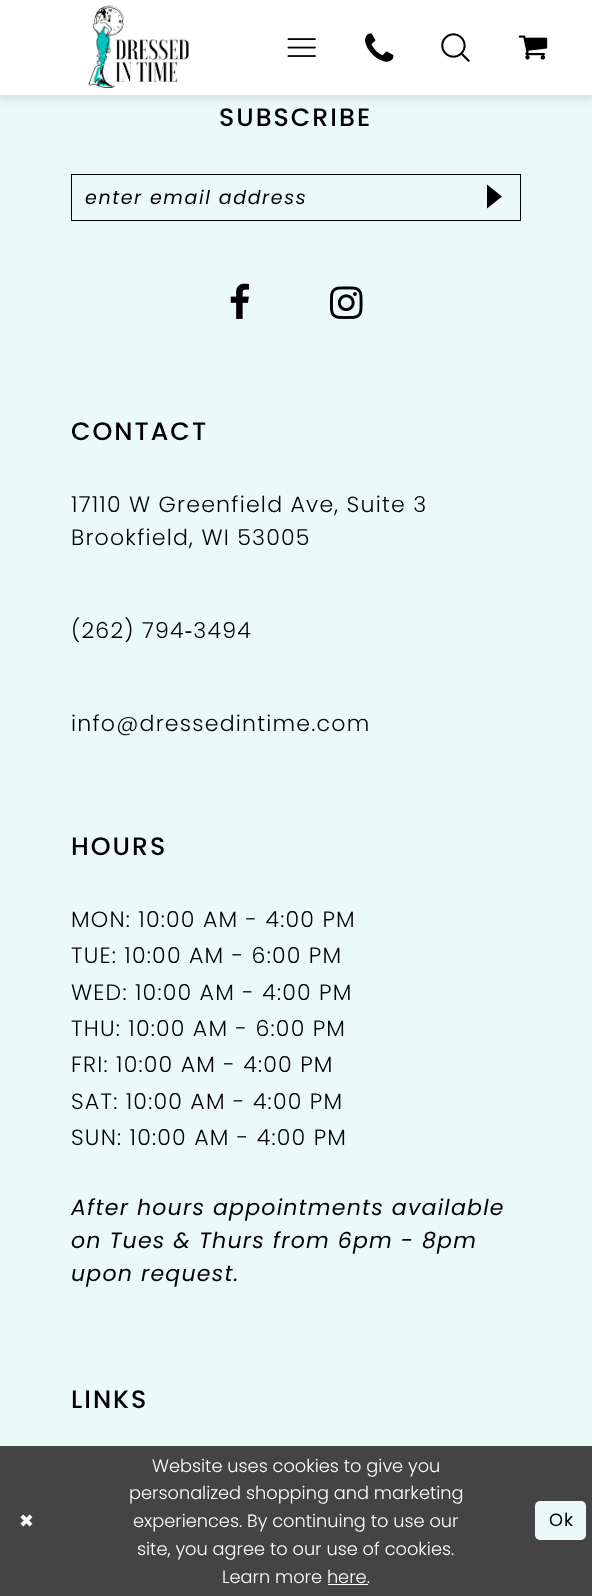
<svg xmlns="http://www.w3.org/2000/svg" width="592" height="1596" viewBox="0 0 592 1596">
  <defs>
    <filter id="blur1" x="-50%" y="-200%" width="200%" height="500%"><feGaussianBlur stdDeviation="4"/></filter>
  </defs>
  <rect width="100%" height="100%" fill="#ecf9f9"/>
  <rect x="-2" y="-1" width="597" height="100" fill="#1e1e1e" fill-opacity="0.1" filter="url(#blur1)"/>
  <rect x="0" y="0" width="592" height="95" fill="#ffffff"/>
  <image x="88" y="5" width="101" height="83" href="img1.png"/>
  <image x="287" y="38" width="29" height="19" href="img2.png"/>
  <image x="365" y="33" width="29" height="29" href="img3.png"/>
  <image x="441" y="33" width="29" height="29" href="img4.png"/>
  <image x="518" y="35" width="30" height="25" href="img5.png"/>
  <text x="219" y="126" font-family="Poppins" font-size="25.25" font-weight="500" letter-spacing="2" fill="#000000">SUBSCRIBE</text>
  <rect x="71.5" y="174.5" width="449" height="46" fill="none" stroke="#000000"/>
  <text x="85" y="204" font-family="Poppins" font-size="19" font-style="italic" letter-spacing="1.6" fill="#000000">enter email address</text>
  <path d="M487 184.5V208.5L502 196.5Z" fill="#000000"/>
  <image x="230" y="283" width="20" height="36" href="img6.png"/>
  <image x="330" y="286" width="33" height="33" href="img7.png"/>
  <text x="71" y="440" font-family="Poppins" font-size="25.25" font-weight="500" letter-spacing="2" fill="#000000">CONTACT</text>
  <text x="71" y="512" font-family="Poppins" font-size="22.1" font-weight="300" letter-spacing="1.2" fill="#000000">17110 W Greenfield Ave, Suite 3</text>
  <text x="71" y="545" font-family="Poppins" font-size="22.1" font-weight="300" letter-spacing="1.2" fill="#000000">Brookfield, WI 53005</text>
  <text x="71" y="638" font-family="Poppins" font-size="22.1" font-weight="300" letter-spacing="1.2" fill="#000000">(262) 794‑3494</text>
  <text x="71" y="731" font-family="Poppins" font-size="22.1" font-weight="300" letter-spacing="1.2" fill="#000000">info@dressedintime.com</text>
  <text x="71" y="855" font-family="Poppins" font-size="25.25" font-weight="500" letter-spacing="2" fill="#000000">HOURS</text>
  <text x="71" y="927" font-family="Poppins" font-size="22.1" font-weight="300" letter-spacing="1.2" fill="#000000">MON: 10:00 AM - 4:00 PM</text>
  <text x="71" y="963" font-family="Poppins" font-size="22.1" font-weight="300" letter-spacing="1.2" fill="#000000">TUE: 10:00 AM - 6:00 PM</text>
  <text x="71" y="1000" font-family="Poppins" font-size="22.1" font-weight="300" letter-spacing="1.2" fill="#000000">WED: 10:00 AM - 4:00 PM</text>
  <text x="71" y="1036" font-family="Poppins" font-size="22.1" font-weight="300" letter-spacing="1.2" fill="#000000">THU: 10:00 AM - 6:00 PM</text>
  <text x="71" y="1072" font-family="Poppins" font-size="22.1" font-weight="300" letter-spacing="1.2" fill="#000000">FRI: 10:00 AM - 4:00 PM</text>
  <text x="71" y="1109" font-family="Poppins" font-size="22.1" font-weight="300" letter-spacing="1.2" fill="#000000">SAT: 10:00 AM - 4:00 PM</text>
  <text x="71" y="1145" font-family="Poppins" font-size="22.1" font-weight="300" letter-spacing="1.2" fill="#000000">SUN: 10:00 AM - 4:00 PM</text>
  <text x="71" y="1215" font-family="Poppins" font-size="22.1" font-style="italic" letter-spacing="1.2" fill="#000000">After hours appointments available</text>
  <text x="71" y="1248" font-family="Poppins" font-size="22.1" font-style="italic" letter-spacing="1.2" fill="#000000">on Tues &amp; Thurs from 6pm - 8pm</text>
  <text x="71" y="1281" font-family="Poppins" font-size="22.1" font-style="italic" letter-spacing="1.2" fill="#000000">upon request.</text>
  <text x="71" y="1408" font-family="Poppins" font-size="25.25" font-weight="500" letter-spacing="2" fill="#000000">LINKS</text>
  <rect x="0" y="1446" width="592" height="150" fill="#444444"/>
  <text x="19" y="1527" font-family="DejaVu Sans" font-size="17.75" letter-spacing="1" fill="#ffffff">✖</text>
  <text x="152" y="1472" font-family="Poppins" font-size="17.75" font-weight="300" fill="#ffffff">Website uses cookies to give you</text>
  <text x="129" y="1499" font-family="Poppins" font-size="17.75" font-weight="300" fill="#ffffff">personalized shopping and marketing</text>
  <text x="133" y="1527" font-family="Poppins" font-size="17.75" font-weight="300" fill="#ffffff">experiences. By continuing to use our</text>
  <text x="137" y="1555" font-family="Poppins" font-size="17.75" font-weight="300" fill="#ffffff">site, you agree to our use of cookies.</text>
  <text x="222" y="1583" font-family="Poppins" font-size="17.75" font-weight="300" fill="#ffffff">Learn more here.</text>
  <rect x="328" y="1584" width="40" height="1" fill="#ffffff"/>
  <rect x="535" y="1501" width="51" height="39" rx="5" fill="#ecf9f9"/>
  <text x="549" y="1526" font-family="Poppins" font-size="17.75" letter-spacing="1" fill="#000000">Ok</text>
</svg>
